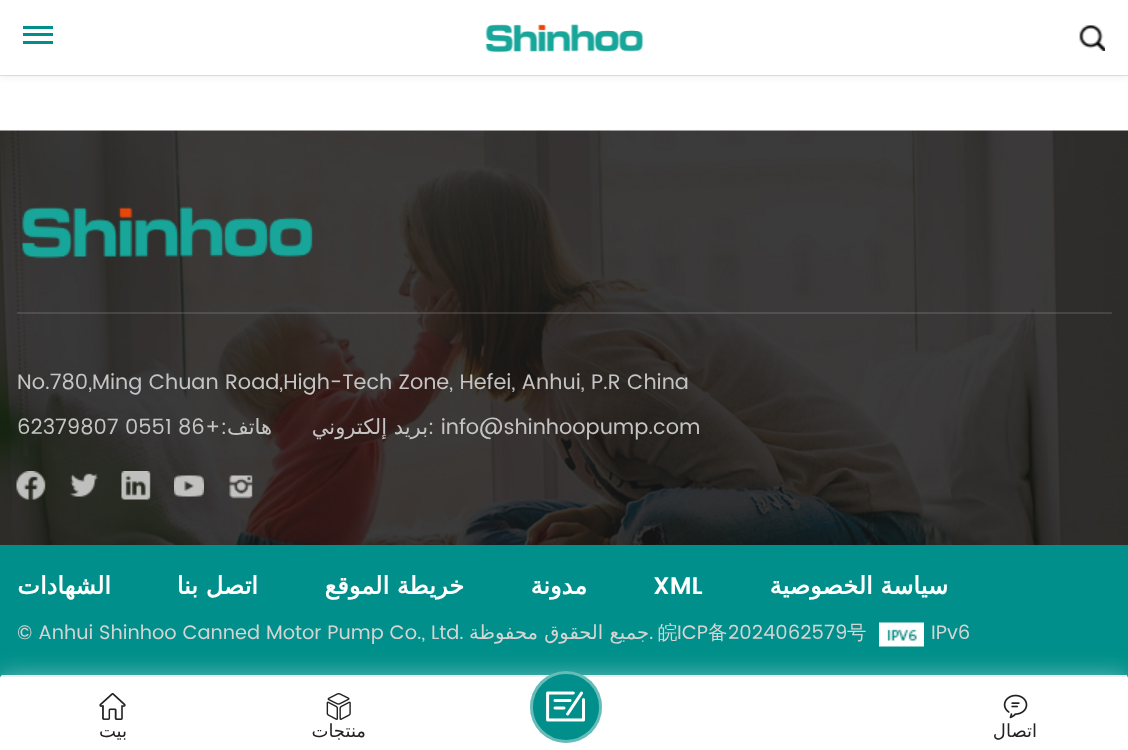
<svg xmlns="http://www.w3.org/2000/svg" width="1128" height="750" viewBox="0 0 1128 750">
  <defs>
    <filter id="blur1" x="-50%" y="-200%" width="200%" height="500%"><feGaussianBlur stdDeviation="4"/></filter>
    <filter id="blur2" x="-50%" y="-200%" width="200%" height="500%"><feGaussianBlur stdDeviation="11"/></filter>
  </defs>
  <rect width="100%" height="100%" fill="#ffffff"/>
  <rect x="0" y="0" width="1128" height="75" fill="#000000" fill-opacity="0.1" filter="url(#blur1)"/>
  <rect x="0" y="75" width="1128" height="1" fill="#000000" fill-opacity="0.1"/>
  <rect x="0" y="0" width="1128" height="75" fill="#ffffff"/>
  <rect x="23" y="26" width="30" height="3" fill="#008f8a"/>
  <rect x="23" y="33" width="30" height="3" fill="#008f8a"/>
  <rect x="23" y="41" width="30" height="3" fill="#008f8a"/>
  <image x="485" y="24" width="158" height="29" href="img1.png"/>
  <image x="1079" y="25" width="26" height="26" href="img2.png"/>
  <image x="0" y="130" width="1128" height="415" href="img3.png"/>
  <rect x="17" y="312" width="1095" height="2" fill="#ffffff" fill-opacity="0.12"/>
  <image x="22" y="206" width="291" height="53" href="img4.png"/>
  <text x="17" y="389" font-family="Poppins" font-size="21" fill="#c4c4c4">No.780,Ming Chuan Road,High-Tech Zone, Hefei, Anhui, P.R China</text>
  <text x="17" y="434" font-family="Poppins" font-size="21" fill="#c4c4c4">62379807 0551 86</text>
  <text x="227" y="434" font-family="Poppins" font-size="21" direction="rtl" fill="#c4c4c4">:+</text>
  <text x="272" y="434" font-family="DejaVu Sans" font-size="21" direction="rtl" fill="#c4c4c4">هاتف</text>
  <text x="428" y="434" font-family="DejaVu Sans" font-size="21" direction="rtl" fill="#c4c4c4">بريد إلكتروني</text>
  <text x="428" y="434" font-family="Poppins" font-size="21" fill="#c4c4c4">: info@shinhoopump.com</text>
  <image x="16" y="471" width="30" height="29" href="img5.png"/>
  <image x="70" y="473" width="28" height="24" href="img6.png"/>
  <image x="121" y="471" width="30" height="29" href="img7.png"/>
  <image x="174" y="475" width="30" height="22" href="img8.png"/>
  <image x="229" y="475" width="24" height="24" href="img9.png"/>
  <rect x="0" y="545" width="1128" height="133" fill="#008f8a"/>
  <text x="111" y="594" font-family="DejaVu Sans" font-size="24" font-weight="bold" direction="rtl" fill="#ffffff">الشهادات</text>
  <text x="258" y="594" font-family="DejaVu Sans" font-size="24" font-weight="bold" direction="rtl" fill="#ffffff">اتصل بنا</text>
  <text x="464" y="594" font-family="DejaVu Sans" font-size="24" font-weight="bold" direction="rtl" fill="#ffffff">خريطة الموقع</text>
  <text x="587" y="594" font-family="DejaVu Sans" font-size="24" font-weight="bold" direction="rtl" fill="#ffffff">مدونة</text>
  <text x="653" y="594" font-family="Poppins" font-size="24" font-weight="600" fill="#ffffff">XML</text>
  <text x="948" y="594" font-family="DejaVu Sans" font-size="24" font-weight="bold" direction="rtl" fill="#ffffff">سياسة الخصوصية</text>
  <text x="17" y="639" font-family="Poppins" font-size="19.5" fill="#d4d4d4">© Anhui Shinhoo Canned Motor Pump Co., Ltd.</text>
  <text x="649" y="639" font-family="DejaVu Sans" font-size="19.5" direction="rtl" fill="#d4d4d4">جميع الحقوق محفوظة</text>
  <text x="649" y="639" font-family="Poppins" font-size="19.5" fill="#d4d4d4">.</text>
  <text x="658" y="639" font-family="WenQuanYi Zen Hei" font-size="19.5" font-weight="500" fill="#d4d4d4">皖</text>
  <text x="677" y="639" font-family="Poppins" font-size="19.5" fill="#d4d4d4">ICP</text>
  <text x="708" y="639" font-family="WenQuanYi Zen Hei" font-size="19.5" font-weight="500" fill="#d4d4d4">备</text>
  <text x="728" y="639" font-family="Poppins" font-size="19.5" fill="#d4d4d4">2024062579</text>
  <text x="847" y="639" font-family="WenQuanYi Zen Hei" font-size="19.5" font-weight="500" fill="#d4d4d4">号</text>
  <image x="879" y="622" width="45" height="25" href="img10.png"/>
  <text x="931" y="639" font-family="Poppins" font-size="19.5" fill="#d4d4d4">IPv6</text>
  <rect x="0" y="675" width="1128" height="75" rx="3" fill="#ffffff" fill-opacity="0.4" filter="url(#blur2)"/>
  <path d="M3 675H1125C1126.5 675 1128 676.5 1128 678V750H0V678C0 676.5 1.5 675 3 675Z" fill="#ffffff"/>
  <rect x="2" y="675" width="1125" height="2" fill="#eeeeee"/>
  <circle cx="566" cy="707" r="36" fill="#008f8a"/>
  <circle cx="566" cy="707" r="34.5" fill="none" stroke="#ffffff" stroke-opacity="0.4" stroke-width="3"/>
  <image x="546" y="691" width="39" height="31" href="img11.png"/>
  <image x="99" y="693" width="27" height="27" href="img12.png"/>
  <text x="127" y="737" font-family="DejaVu Sans" font-size="18" direction="rtl" fill="#222222">بيت</text>
  <image x="326" y="693" width="25" height="27" href="img13.png"/>
  <text x="366" y="737" font-family="DejaVu Sans" font-size="18" direction="rtl" fill="#222222">منتجات</text>
  <image x="1003" y="694" width="25" height="25" href="img14.png"/>
  <text x="1037" y="737" font-family="DejaVu Sans" font-size="18" direction="rtl" fill="#222222">اتصال</text>
</svg>
